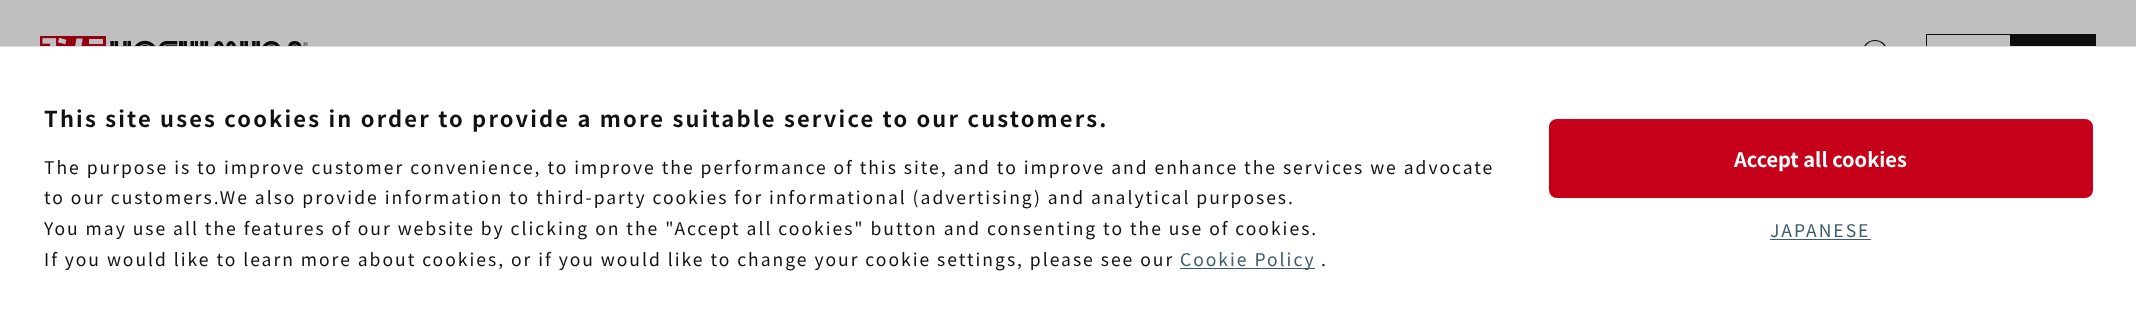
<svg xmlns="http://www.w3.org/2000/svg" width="2136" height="335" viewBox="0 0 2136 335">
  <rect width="100%" height="100%" fill="#bfbfbf"/>
  <image x="40" y="36" width="66" height="10" href="img1.png"/>
  <image x="110" y="40" width="198" height="6" href="img2.png"/>
  <circle cx="1875" cy="52.5" r="12" fill="none" stroke="#0d0d0d" stroke-width="1.2"/>
  <rect x="1926.5" y="34.5" width="84" height="36" fill="none" stroke="#0d0d0d"/>
  <rect x="2011" y="34" width="85" height="12" fill="#0d0d0d"/>
  <rect x="0" y="47" width="2136" height="288" fill="#ffffff"/>
  <rect x="0" y="46" width="2136" height="1" fill="#dddddd"/>
  <text x="44" y="127" font-family="Noto Sans JP" font-size="21.9" font-weight="bold" letter-spacing="2.2" fill="#111111">This site uses cookies in order to provide a more suitable service to our customers.</text>
  <text x="44" y="174" font-family="Noto Sans JP" font-size="17.5" letter-spacing="2" fill="#111111">The purpose is to improve customer convenience, to improve the performance of this site, and to improve and enhance the services we advocate</text>
  <text x="44" y="204" font-family="Noto Sans JP" font-size="17.5" letter-spacing="2" fill="#111111">to our customers.We also provide information to third-party cookies for informational (advertising) and analytical purposes.</text>
  <text x="44" y="235" font-family="Noto Sans JP" font-size="17.5" letter-spacing="2" fill="#111111">You may use all the features of our website by clicking on the "Accept all cookies" button and consenting to the use of cookies.</text>
  <text x="44" y="266" font-family="Noto Sans JP" font-size="17.5" letter-spacing="2" fill="#111111">If you would like to learn more about cookies, or if you would like to change your cookie settings, please see our</text>
  <rect x="1180" y="268" width="135" height="1" fill="#3c5c70"/>
  <text x="1180" y="266" font-family="Noto Sans JP" font-size="17.5" letter-spacing="2" fill="#3c5c70">Cookie Policy</text>
  <text x="1321" y="266" font-family="Noto Sans JP" font-size="17.5" letter-spacing="2" fill="#111111">.</text>
  <rect x="1550.5" y="120.5" width="541" height="76" rx="6.5" fill="#c50018" stroke="#c50018" stroke-width="3"/>
  <text x="1734" y="167" font-family="Noto Sans JP" font-size="20" font-weight="bold" fill="#ffffff">Accept all cookies</text>
  <text x="1770" y="237" font-family="Noto Sans JP" font-size="17.5" letter-spacing="2" fill="#3c5c70">JAPANESE</text>
  <rect x="1770" y="239" width="101" height="1" fill="#3c5c70"/>
</svg>
